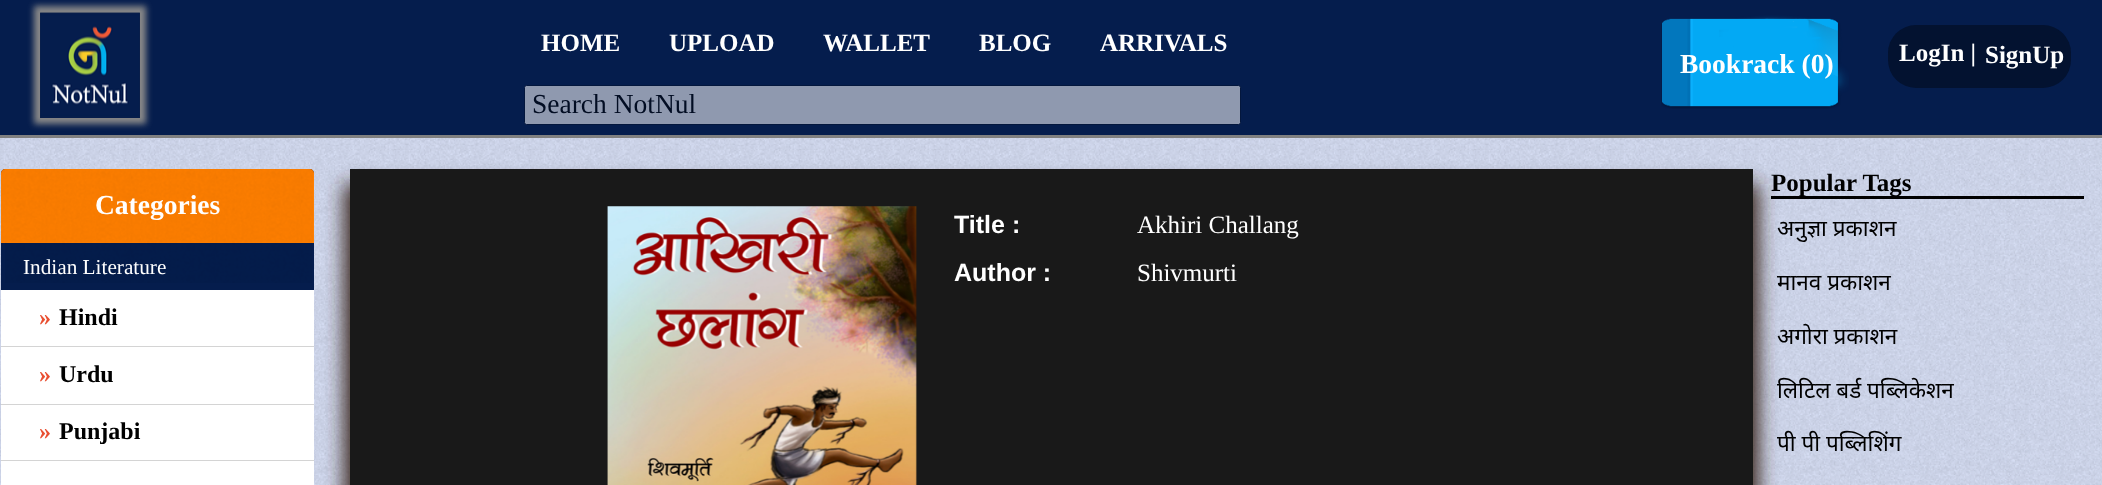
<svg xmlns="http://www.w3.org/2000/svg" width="2102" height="485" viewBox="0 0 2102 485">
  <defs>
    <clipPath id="clip1"><path d="M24 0H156V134H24ZM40 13H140V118H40Z" clip-rule="evenodd"/></clipPath>
    <filter id="blur1" x="-50%" y="-200%" width="200%" height="500%"><feGaussianBlur stdDeviation="3"/></filter>
    <filter id="blur2" x="-50%" y="-200%" width="200%" height="500%"><feGaussianBlur stdDeviation="9.5"/></filter>
  </defs>
  <rect width="100%" height="100%" fill="#ffffff"/>
  <image x="0" y="138" width="2102" height="347" href="img1.png"/>
  <rect x="0" y="0" width="2102" height="135" fill="#051d4d"/>
  <rect x="0" y="135" width="2102" height="3" fill="#808080"/>
  <g clip-path="url(#clip1)">
    <rect x="34" y="6" width="112" height="118" fill="#888888" filter="url(#blur1)"/>
  </g>
  <image x="40" y="12" width="100" height="106" href="img2.png"/>
  <text x="541" y="51" font-family="Liberation Serif" font-size="25" font-weight="bold" fill="#ffffff">HOME</text>
  <text x="669" y="51" font-family="Liberation Serif" font-size="25" font-weight="bold" fill="#ffffff">UPLOAD</text>
  <text x="823" y="51" font-family="Liberation Serif" font-size="25" font-weight="bold" fill="#ffffff">WALLET</text>
  <text x="979" y="51" font-family="Liberation Serif" font-size="25" font-weight="bold" fill="#ffffff">BLOG</text>
  <text x="1100" y="51" font-family="Liberation Serif" font-size="25" font-weight="bold" fill="#ffffff">ARRIVALS</text>
  <rect x="524.5" y="85.5" width="716" height="39" rx="2" fill="#8f99af" stroke="#04173d"/>
  <text x="532" y="113" font-family="Liberation Serif" font-size="27.5" fill="#020d23">Search NotNul</text>
  <image x="1661" y="15" width="188" height="94" href="img3.png"/>
  <text x="1680" y="73" font-family="Liberation Serif" font-size="27.5" font-weight="bold" fill="#ffffff">Bookrack (0)</text>
  <rect x="1888" y="25" width="183" height="63" rx="28" fill="#031230"/>
  <text x="1899" y="61" font-family="Liberation Serif" font-size="25" font-weight="bold" fill="#ffffff">LogIn |</text>
  <text x="1985" y="63" font-family="Liberation Serif" font-size="25" font-weight="bold" fill="#ffffff">SignUp</text>
  <path d="M5 169H310C312 169 314 171 314 173V485H1V173C1 171 3 169 5 169Z" fill="#051d4d"/>
  <path d="M5 169H310C312 169 314 171 314 173V243H1V173C1 171 3 169 5 169Z" fill="#ff7f00"/>
  <image x="1" y="169" width="312" height="73" href="img4.png"/>
  <text x="95" y="214" font-family="Liberation Serif" font-size="27.5" font-weight="bold" fill="#ffffff">Categories</text>
  <image x="5" y="242" width="307" height="41" href="img5.png"/>
  <text x="23" y="274" font-family="Liberation Serif" font-size="21.25" fill="#ffffff">Indian Literature</text>
  <rect x="1" y="290" width="313" height="114" fill="#ffffff"/>
  <rect x="1" y="346" width="313" height="1" fill="#d4d4d4"/>
  <text x="39" y="325" font-family="Liberation Serif" font-size="24" font-weight="bold" fill="#e94f31">»</text>
  <text x="59" y="325" font-family="Liberation Serif" font-size="24" font-weight="bold" fill="#000000">Hindi</text>
  <rect x="1" y="404" width="313" height="1" fill="#d4d4d4"/>
  <text x="39" y="382" font-family="Liberation Serif" font-size="24" font-weight="bold" fill="#e94f31">»</text>
  <text x="59" y="382" font-family="Liberation Serif" font-size="24" font-weight="bold" fill="#000000">Urdu</text>
  <rect x="1" y="405" width="313" height="55" fill="#ffffff"/>
  <rect x="1" y="460" width="313" height="1" fill="#d4d4d4"/>
  <text x="39" y="439" font-family="Liberation Serif" font-size="24" font-weight="bold" fill="#e94f31">»</text>
  <text x="59" y="439" font-family="Liberation Serif" font-size="24" font-weight="bold" fill="#000000">Punjabi</text>
  <rect x="1" y="461" width="313" height="24" fill="#ffffff"/>
  <rect x="344" y="184" width="1415" height="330" fill="#3b271a" filter="url(#blur2)"/>
  <rect x="350" y="169" width="1403" height="316" fill="#191919"/>
  <image x="607" y="206" width="310" height="279" href="img6.png"/>
  <text x="954" y="233" font-family="Liberation Sans" font-size="25" font-weight="bold" fill="#ffffff">Title :</text>
  <text x="1137" y="233" font-family="Liberation Serif" font-size="25" fill="#ffffff">Akhiri Challang</text>
  <text x="954" y="281" font-family="Liberation Sans" font-size="25" font-weight="bold" fill="#ffffff">Author :</text>
  <text x="1137" y="281" font-family="Liberation Serif" font-size="25" fill="#ffffff">Shivmurti</text>
  <rect x="1771" y="196" width="313" height="3" fill="#000000"/>
  <text x="1771" y="191" font-family="Liberation Serif" font-size="25" font-weight="bold" fill="#000000">Popular Tags</text>
  <text x="1777" y="236" font-family="Noto Sans" font-size="22.5" fill="#000000">अनुज्ञा प्रकाशन</text>
  <text x="1777" y="290" font-family="Noto Sans" font-size="22.5" fill="#000000">मानव प्रकाशन</text>
  <text x="1777" y="344" font-family="Noto Sans" font-size="22.5" fill="#000000">अगोरा प्रकाशन</text>
  <text x="1777" y="398" font-family="Noto Sans" font-size="22.5" fill="#000000">लिटिल बर्ड पब्लिकेशन</text>
  <text x="1777" y="451" font-family="Noto Sans" font-size="22.5" fill="#000000">पी पी पब्लिशिंग</text>
</svg>
